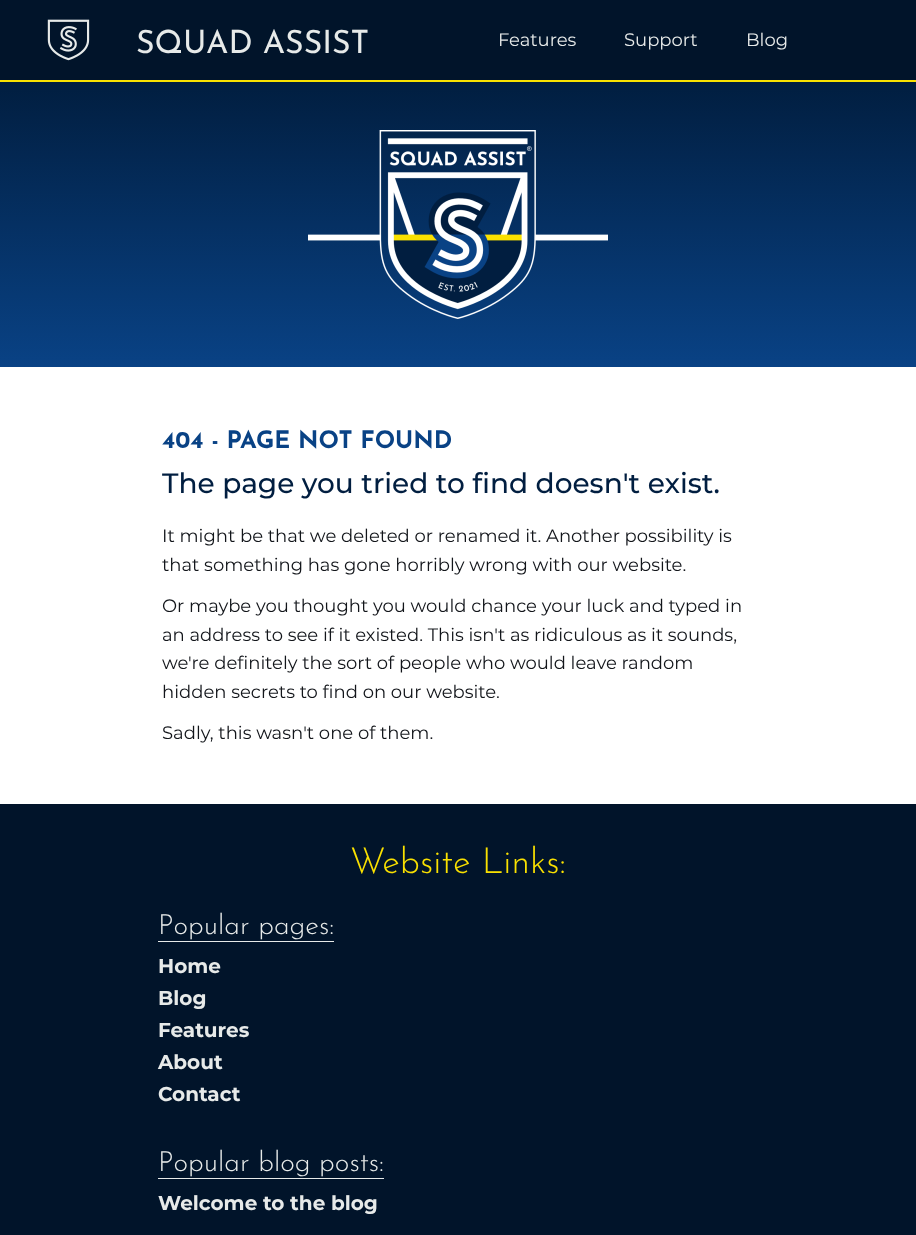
<svg xmlns="http://www.w3.org/2000/svg" width="916" height="1235" viewBox="0 0 916 1235">
  <defs>
    <linearGradient id="g1" gradientUnits="userSpaceOnUse" x1="458" y1="82" x2="458" y2="367"><stop offset="0" stop-color="#011e40"/><stop offset="1" stop-color="#094285"/></linearGradient>
  </defs>
  <rect width="100%" height="100%" fill="#ffffff"/>
  <rect x="0" y="80" width="916" height="2" fill="#fae100"/>
  <rect x="0" y="0" width="916" height="80" fill="#01142a"/>
  <image x="47" y="19" width="43" height="42" href="img1.png"/>
  <text x="136" y="53" font-family="Josefin Sans" font-size="32" fill="#e7eae9">SQUAD ASSIST</text>
  <text x="498" y="46" font-family="Montserrat" font-size="18" fill="#e7eae9">Features</text>
  <text x="624" y="46" font-family="Montserrat" font-size="18" fill="#e7eae9">Support</text>
  <text x="746" y="46" font-family="Montserrat" font-size="18" fill="#e7eae9">Blog</text>
  <rect x="0" y="82" width="916" height="285" fill="url(#g1)"/>
  <image x="308" y="130" width="300" height="189" href="img2.png"/>
  <text x="162" y="448" font-family="Josefin Sans" font-size="24" font-weight="bold" fill="#094285">404 - PAGE NOT FOUND</text>
  <text x="162" y="493" font-family="Montserrat" font-size="28" font-weight="500" fill="#011e40">The page you tried to find doesn't exist.</text>
  <text x="162" y="542" font-family="Montserrat" font-size="18" fill="#12151a">It might be that we deleted or renamed it. Another possibility is</text>
  <text x="162" y="571" font-family="Montserrat" font-size="18" fill="#12151a">that something has gone horribly wrong with our website.</text>
  <text x="162" y="612" font-family="Montserrat" font-size="18" fill="#12151a">Or maybe you thought you would chance your luck and typed in</text>
  <text x="162" y="641" font-family="Montserrat" font-size="18" fill="#12151a">an address to see if it existed. This isn't as ridiculous as it sounds,</text>
  <text x="162" y="669" font-family="Montserrat" font-size="18" fill="#12151a">we're definitely the sort of people who would leave random</text>
  <text x="162" y="698" font-family="Montserrat" font-size="18" fill="#12151a">hidden secrets to find on our website.</text>
  <text x="162" y="739" font-family="Montserrat" font-size="18" fill="#12151a">Sadly, this wasn't one of them.</text>
  <rect x="0" y="804" width="916" height="431" fill="#01142a"/>
  <text x="350" y="873" font-family="Josefin Sans" font-size="36" font-weight="300" fill="#fae100">Website Links:</text>
  <rect x="158" y="941" width="176" height="1" fill="#e7eae9"/>
  <text x="158" y="934" font-family="Josefin Sans" font-size="28" font-weight="300" fill="#e7eae9">Popular pages:</text>
  <text x="158" y="973" font-family="Montserrat" font-size="20" font-weight="bold" fill="#e7eae9">Home</text>
  <text x="158" y="1005" font-family="Montserrat" font-size="20" font-weight="bold" fill="#e7eae9">Blog</text>
  <text x="158" y="1037" font-family="Montserrat" font-size="20" font-weight="bold" fill="#e7eae9">Features</text>
  <text x="158" y="1069" font-family="Montserrat" font-size="20" font-weight="bold" fill="#e7eae9">About</text>
  <text x="158" y="1101" font-family="Montserrat" font-size="20" font-weight="bold" fill="#e7eae9">Contact</text>
  <rect x="158" y="1178" width="226" height="1" fill="#e7eae9"/>
  <text x="158" y="1171" font-family="Josefin Sans" font-size="28" font-weight="300" fill="#e7eae9">Popular blog posts:</text>
  <text x="158" y="1210" font-family="Montserrat" font-size="20" font-weight="bold" fill="#e7eae9">Welcome to the blog</text>
</svg>
